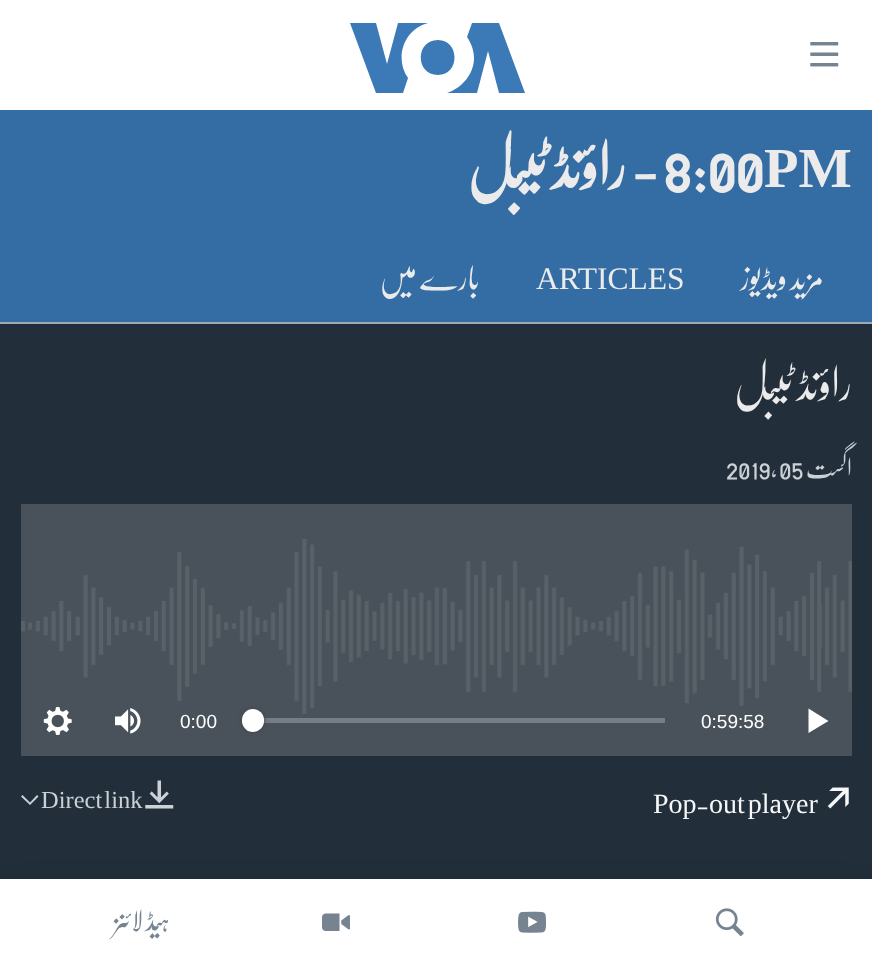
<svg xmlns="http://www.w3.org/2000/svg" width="872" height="965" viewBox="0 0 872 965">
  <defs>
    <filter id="blur1" x="-50%" y="-200%" width="200%" height="500%"><feGaussianBlur stdDeviation="2.5"/></filter>
    <filter id="blur2" x="-50%" y="-200%" width="200%" height="500%"><feGaussianBlur stdDeviation="17.5"/></filter>
  </defs>
  <rect width="100%" height="100%" fill="#ffffff"/>
  <rect x="0" y="110" width="872" height="212" fill="#346ca4"/>
  <text x="658" y="187" font-family="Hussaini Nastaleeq" font-size="56.5" font-weight="bold" direction="rtl" fill="#ebebeb">- راؤنڈ ٹیبل</text>
  <text x="663" y="187" font-family="Hussaini Nastaleeq" font-size="56.5" font-weight="bold" fill="#ebebeb">8:00</text>
  <text x="764" y="187" font-family="Liberation Serif" font-size="56.5" font-weight="bold" fill="#ebebeb">PM</text>
  <text x="480" y="289" font-family="Hussaini Nastaleeq" font-size="31.5" direction="rtl" fill="#ebebeb">بارے میں</text>
  <text x="536" y="289" font-family="Liberation Serif" font-size="31.5" fill="#ebebeb">ARTICLES</text>
  <text x="824" y="289" font-family="Hussaini Nastaleeq" font-size="31.5" direction="rtl" fill="#ebebeb">مزید ویڈیوز</text>
  <rect x="0" y="324" width="872" height="555" fill="#222f3a"/>
  <rect x="0" y="322" width="872" height="2" fill="#a1aab4"/>
  <text x="852" y="399" font-family="Hussaini Nastaleeq" font-size="42" direction="rtl" fill="#ebebeb">راؤنڈ ٹیبل</text>
  <text x="726" y="477" font-family="Hussaini Nastaleeq" font-size="24.5" fill="#cbd1d6">2019, 05</text>
  <text x="852" y="477" font-family="Hussaini Nastaleeq" font-size="24.5" direction="rtl" fill="#cbd1d6">اگست</text>
  <rect x="21" y="504" width="831" height="252" fill="#49525a"/>
  <image x="21" y="539" width="831" height="175" href="img1.png"/>
  <image x="43" y="707" width="29" height="28" href="img2.png"/>
  <image x="115" y="708" width="26" height="26" href="img3.png"/>
  <text x="180" y="728" font-family="Liberation Sans" font-size="19" fill="#ffffff">0:00</text>
  <rect x="263" y="718" width="402" height="5" fill="#777d83"/>
  <rect x="242" y="709" width="22" height="23" rx="11" fill="#414144" filter="url(#blur1)"/>
  <rect x="242" y="709" width="22" height="23" rx="11" fill="#ffffff"/>
  <text x="701" y="728" font-family="Liberation Sans" font-size="19" fill="#ffffff">0:59:58</text>
  <path d="M808.5 733L828.5 721L808.5 708.5Z" fill="#ffffff"/>
  <path d="M21 796.5L30 805L38.5 796.5L37 795L30 802.5L22.5 795Z" fill="#cbd1d6"/>
  <text x="41" y="808" word-spacing="-4" font-family="Liberation Serif" font-size="24.5" fill="#cbd1d6">Direct link</text>
  <image x="145" y="780" width="29" height="29" href="img4.png"/>
  <text x="653" y="813" font-family="Liberation Serif" font-size="28" fill="#f6f7f8">Pop</text>
  <text x="696" y="813" font-family="Hussaini Nastaleeq" font-size="28" fill="#f6f7f8">-</text>
  <text x="709" y="813" word-spacing="-4" font-family="Liberation Serif" font-size="28" fill="#f6f7f8">out player</text>
  <image x="827" y="787" width="22" height="22" href="img5.png"/>
  <path d="M408 78L403 93H376L350 23H376L387 64L398 23H428C404 29 394 58 408 78ZM438 40C415 40 415 75 438 75C460 75 460 40 438 40ZM474 58C474 74 462 88 447 93H477L488 51L499 93H525L499 23H472L467 37C471 43 474 50 474 58Z" fill="#3b79b7"/>
  <image x="810" y="42" width="29" height="25" href="img6.png"/>
  <rect x="0" y="879" width="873" height="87" fill="#000000" fill-opacity="0.1" filter="url(#blur2)"/>
  <rect x="0" y="879" width="872" height="86" fill="#ffffff"/>
  <text x="170" y="930" font-family="Hussaini Nastaleeq" font-size="28" direction="rtl" fill="#768492">ہیڈ لائنز</text>
  <image x="322" y="913" width="28" height="18" href="img7.png"/>
  <image x="518" y="911" width="28" height="22" href="img8.png"/>
  <image x="715" y="908" width="29" height="29" href="img9.png"/>
</svg>
